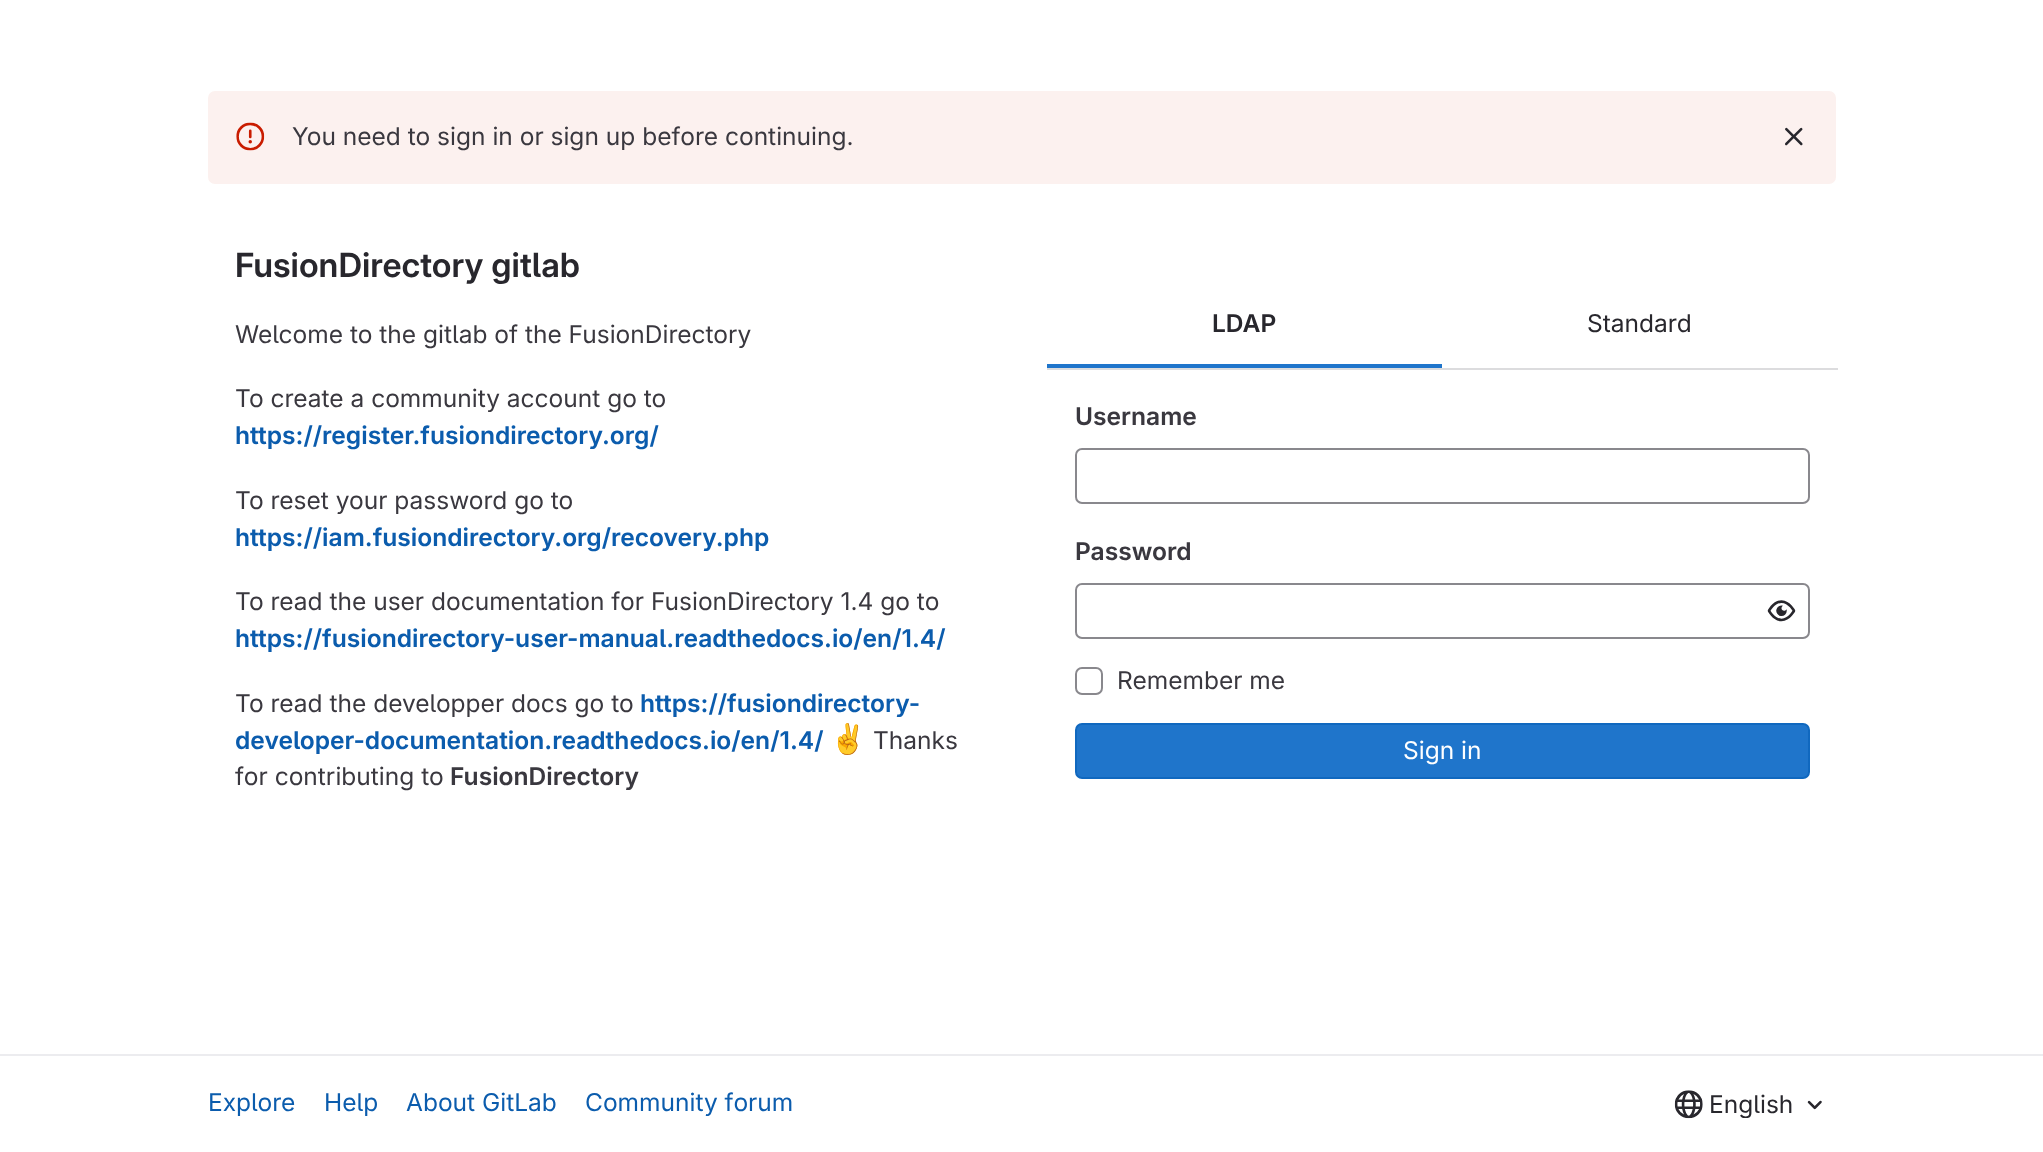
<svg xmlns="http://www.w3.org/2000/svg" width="2043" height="1152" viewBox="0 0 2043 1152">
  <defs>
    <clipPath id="clip1"><rect x="1710" y="1090" width="84" height="28"/></clipPath>
  </defs>
  <rect width="100%" height="100%" fill="#ffffff"/>
  <rect x="208" y="91" width="1628" height="93" rx="7" fill="#fcf1ef"/>
  <image x="236" y="122" width="29" height="29" href="img1.png"/>
  <text x="292" y="145" font-family="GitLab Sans" font-size="24.5" fill="#3a383f">You need to sign in or sign up before continuing.</text>
  <image x="1785" y="127" width="18" height="19" href="img2.png"/>
  <text x="235" y="277" font-family="GitLab Sans" font-size="33.25" font-weight="600" fill="#28272d">FusionDirectory gitlab</text>
  <text x="235" y="343" font-family="GitLab Sans" font-size="24.5" fill="#3a383f">Welcome to the gitlab of the FusionDirectory</text>
  <text x="235" y="407" font-family="GitLab Sans" font-size="24.5" fill="#3a383f">To create a community account go to</text>
  <text x="235" y="444" font-family="'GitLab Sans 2'" font-size="24.5" font-weight="600" fill="#0b5cad">https://register.fusiondirectory.org/</text>
  <text x="235" y="509" font-family="GitLab Sans" font-size="24.5" fill="#3a383f">To reset your password go to</text>
  <text x="235" y="546" font-family="'GitLab Sans 2'" font-size="24.5" font-weight="600" fill="#0b5cad">https://iam.fusiondirectory.org/recovery.php</text>
  <text x="235" y="610" font-family="GitLab Sans" font-size="24.5" fill="#3a383f">To read the user documentation for FusionDirectory 1.4 go to</text>
  <text x="235" y="647" font-family="'GitLab Sans 2'" font-size="24.5" font-weight="600" fill="#0b5cad">https://fusiondirectory-user-manual.readthedocs.io/en/1.4/</text>
  <text x="235" y="712" font-family="GitLab Sans" font-size="24.5" fill="#3a383f">To read the developper docs go to</text>
  <text x="640" y="712" font-family="'GitLab Sans 2'" font-size="24.5" font-weight="600" fill="#0b5cad">https://fusiondirectory-</text>
  <text x="235" y="749" font-family="'GitLab Sans 2'" font-size="24.5" font-weight="600" fill="#0b5cad">developer-documentation.readthedocs.io/en/1.4/</text>
  <text x="830" y="749" font-family="Noto Color Emoji" font-size="29" fill="#3a383f">✌</text>
  <text x="873" y="749" font-family="GitLab Sans" font-size="24.5" fill="#3a383f">Thanks</text>
  <text x="235" y="785" font-family="GitLab Sans" font-size="24.5" fill="#3a383f">for contributing to</text>
  <text x="450" y="785" font-family="'GitLab Sans 2'" font-size="24.5" font-weight="600" fill="#3a383f">FusionDirectory</text>
  <rect x="1047" y="368" width="791" height="2" fill="#dcdcde"/>
  <text x="1212" y="332" font-family="'GitLab Sans 2'" font-size="24.5" font-weight="600" fill="#28272d">LDAP</text>
  <rect x="1047" y="364" width="395" height="4" fill="#1f75cb"/>
  <text x="1587" y="332" font-family="GitLab Sans" font-size="24.5" fill="#28272d">Standard</text>
  <text x="1075" y="425" font-family="'GitLab Sans 2'" font-size="24.5" font-weight="600" fill="#3a383f">Username</text>
  <rect x="1076" y="449" width="733" height="54" rx="6" fill="none" stroke="#89888d" stroke-width="2"/>
  <text x="1075" y="560" font-family="'GitLab Sans 2'" font-size="24.5" font-weight="600" fill="#3a383f">Password</text>
  <rect x="1076" y="584" width="733" height="54" rx="6" fill="none" stroke="#89888d" stroke-width="2"/>
  <image x="1767" y="600" width="29" height="22" href="img3.png"/>
  <rect x="1076" y="668" width="26" height="26" rx="6" fill="none" stroke="#89888d" stroke-width="2"/>
  <text x="1117" y="689" font-family="GitLab Sans" font-size="24.5" fill="#3a383f">Remember me</text>
  <rect x="1076" y="724" width="733" height="54" rx="6" fill="#1f75cb" stroke="#1068bf" stroke-width="2"/>
  <text x="1403" y="759" font-family="GitLab Sans" font-size="24.5" fill="#ffffff">Sign in</text>
  <rect x="0" y="1054" width="2043" height="2" fill="#ececef"/>
  <text x="208" y="1111" font-family="GitLab Sans" font-size="24.5" fill="#0b5cad">Explore</text>
  <text x="324" y="1111" font-family="GitLab Sans" font-size="24.5" fill="#0b5cad">Help</text>
  <text x="406" y="1111" font-family="GitLab Sans" font-size="24.5" fill="#0b5cad">About GitLab</text>
  <text x="585" y="1111" font-family="GitLab Sans" font-size="24.5" fill="#0b5cad">Community forum</text>
  <image x="1674" y="1090" width="29" height="29" href="img4.png"/>
  <g clip-path="url(#clip1)">
    <text x="1709" y="1113" font-family="GitLab Sans" font-size="24.5" fill="#28272d">English</text>
  </g>
  <image x="1807" y="1100" width="15" height="10" href="img5.png"/>
</svg>
